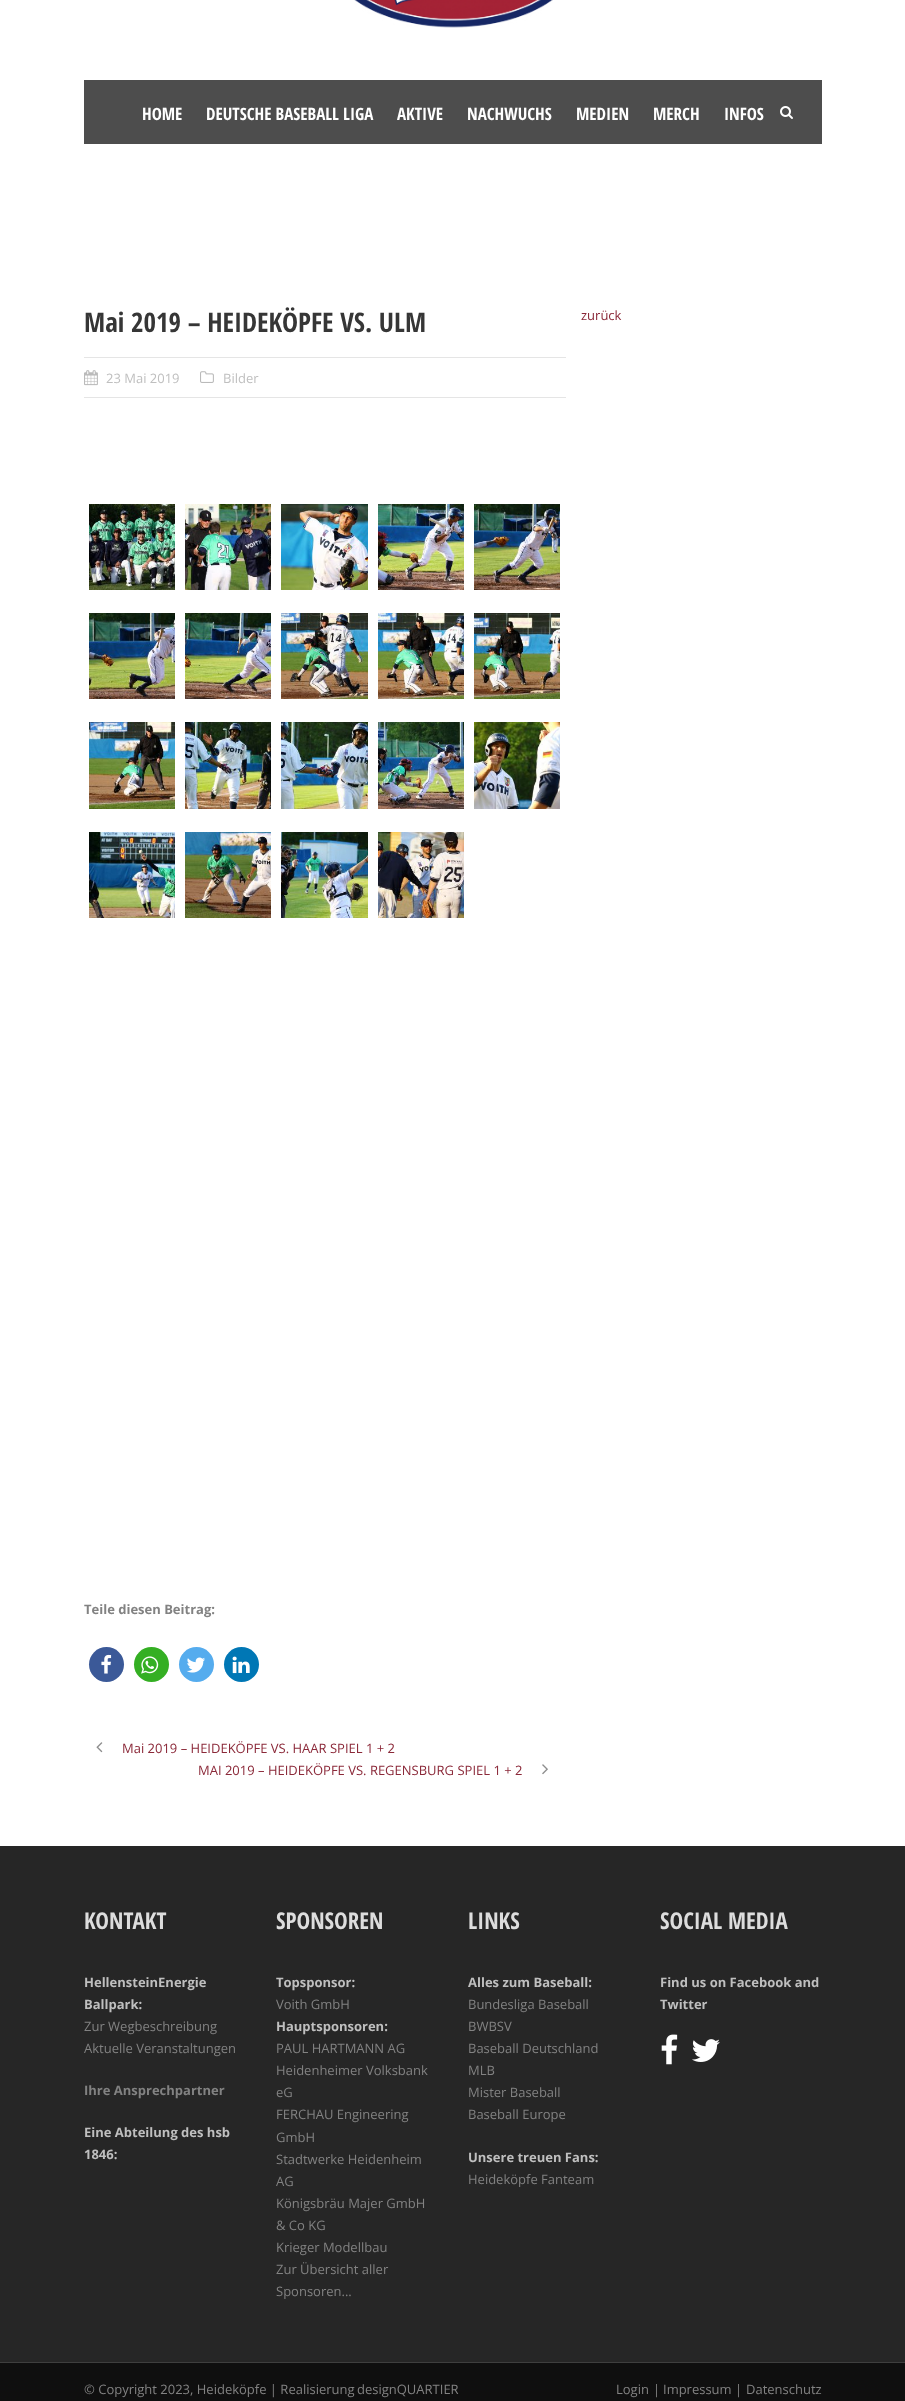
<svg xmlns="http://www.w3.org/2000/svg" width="905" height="2401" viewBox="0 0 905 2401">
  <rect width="100%" height="100%" fill="#ffffff"/>
  <image x="354" y="0" width="199" height="28" href="img1.png"/>
  <rect x="84" y="80" width="738" height="64" fill="#4d4d4d"/>
  <text x="142" y="120" font-family="Open Sans Condensed" font-size="17" font-weight="bold" fill="#ffffff">HOME</text>
  <text x="206" y="120" font-family="Open Sans Condensed" font-size="17" font-weight="bold" fill="#ffffff">DEUTSCHE BASEBALL LIGA</text>
  <text x="397" y="120" font-family="Open Sans Condensed" font-size="17" font-weight="bold" fill="#ffffff">AKTIVE</text>
  <text x="467" y="120" font-family="Open Sans Condensed" font-size="17" font-weight="bold" fill="#ffffff">NACHWUCHS</text>
  <text x="576" y="120" font-family="Open Sans Condensed" font-size="17" font-weight="bold" fill="#ffffff">MEDIEN</text>
  <text x="653" y="120" font-family="Open Sans Condensed" font-size="17" font-weight="bold" fill="#ffffff">MERCH</text>
  <text x="724" y="120" font-family="Open Sans Condensed" font-size="17" font-weight="bold" fill="#ffffff">INFOS</text>
  <image x="780" y="106" width="13" height="13" href="img2.png"/>
  <text x="84" y="332" font-family="Open Sans Condensed" font-size="27" font-weight="bold" fill="#363636">Mai 2019 – HEIDEKÖPFE VS. ULM</text>
  <rect x="84" y="357" width="482" height="1" fill="#e5e5e5"/>
  <rect x="84" y="397" width="482" height="1" fill="#e5e5e5"/>
  <image x="84" y="370" width="14" height="16" href="img3.png"/>
  <text x="106" y="383" font-family="Open Sans" font-size="13" fill="#bfbfbf">23 Mai 2019</text>
  <image x="200" y="371" width="14" height="12" href="img4.png"/>
  <text x="223" y="383" font-family="Open Sans" font-size="13" fill="#bfbfbf">Bilder</text>
  <image x="89" y="504" width="86" height="86" href="img5.png"/>
  <image x="185" y="504" width="86" height="86" href="img6.png"/>
  <image x="281" y="504" width="87" height="86" href="img7.png"/>
  <image x="378" y="504" width="86" height="86" href="img8.png"/>
  <image x="474" y="504" width="86" height="86" href="img9.png"/>
  <image x="89" y="613" width="86" height="86" href="img10.png"/>
  <image x="185" y="613" width="86" height="86" href="img11.png"/>
  <image x="281" y="613" width="87" height="86" href="img12.png"/>
  <image x="378" y="613" width="86" height="86" href="img13.png"/>
  <image x="474" y="613" width="86" height="86" href="img14.png"/>
  <image x="89" y="722" width="86" height="87" href="img15.png"/>
  <image x="185" y="722" width="86" height="87" href="img16.png"/>
  <image x="281" y="722" width="87" height="87" href="img17.png"/>
  <image x="378" y="722" width="86" height="87" href="img18.png"/>
  <image x="474" y="722" width="86" height="87" href="img19.png"/>
  <image x="89" y="832" width="86" height="86" href="img20.png"/>
  <image x="185" y="832" width="86" height="86" href="img21.png"/>
  <image x="281" y="832" width="87" height="86" href="img22.png"/>
  <image x="378" y="832" width="86" height="86" href="img23.png"/>
  <text x="84" y="1614" font-family="Open Sans" font-size="13" font-weight="bold" fill="#828282">Teile diesen Beitrag:</text>
  <circle cx="106.5" cy="1664.5" r="17.5" fill="#3b5998"/>
  <image x="101" y="1654" width="11" height="20" href="img24.png"/>
  <circle cx="151.5" cy="1664.5" r="17.5" fill="#34af23"/>
  <image x="141" y="1656" width="18" height="18" href="img25.png"/>
  <circle cx="196.5" cy="1664.5" r="17.5" fill="#55acee"/>
  <image x="186" y="1657" width="19" height="16" href="img26.png"/>
  <circle cx="241.5" cy="1664.5" r="17.5" fill="#0077b5"/>
  <image x="232" y="1656" width="18" height="18" href="img27.png"/>
  <image x="96" y="1742" width="7" height="11" href="img28.png"/>
  <text x="122" y="1753" font-family="Open Sans" font-size="13" fill="#8b2939">Mai 2019 – HEIDEKÖPFE VS. HAAR SPIEL 1 + 2</text>
  <text x="198" y="1775" font-family="Open Sans" font-size="13" fill="#8b2939">MAI 2019 – HEIDEKÖPFE VS. REGENSBURG SPIEL 1 + 2</text>
  <image x="542" y="1764" width="6" height="11" href="img29.png"/>
  <text x="581" y="320" font-family="Open Sans" font-size="13" fill="#8b2939">zurück</text>
  <rect x="0" y="1846" width="905" height="516" fill="#262626"/>
  <text x="84" y="1929" font-family="Open Sans Condensed" font-size="23" font-weight="bold" fill="#dddddd">KONTAKT</text>
  <text x="84" y="1987" font-family="Open Sans" font-size="13" font-weight="bold" fill="#bfbfbf">HellensteinEnergie</text>
  <text x="84" y="2009" font-family="Open Sans" font-size="13" font-weight="bold" fill="#bfbfbf">Ballpark:</text>
  <text x="84" y="2031" font-family="Open Sans" font-size="13" fill="#828282">Zur Wegbeschreibung</text>
  <text x="84" y="2053" font-family="Open Sans" font-size="13" fill="#828282">Aktuelle Veranstaltungen</text>
  <text x="84" y="2095" font-family="Open Sans" font-size="13" font-weight="bold" fill="#828282">Ihre Ansprechpartner</text>
  <text x="84" y="2137" font-family="Open Sans" font-size="13" font-weight="bold" fill="#bfbfbf">Eine Abteilung des hsb</text>
  <text x="84" y="2159" font-family="Open Sans" font-size="13" font-weight="bold" fill="#bfbfbf">1846:</text>
  <text x="276" y="1929" font-family="Open Sans Condensed" font-size="23" font-weight="bold" fill="#dddddd">SPONSOREN</text>
  <text x="276" y="1987" font-family="Open Sans" font-size="13" font-weight="bold" fill="#bfbfbf">Topsponsor:</text>
  <text x="276" y="2009" font-family="Open Sans" font-size="13" fill="#828282">Voith GmbH</text>
  <text x="276" y="2031" font-family="Open Sans" font-size="13" font-weight="bold" fill="#bfbfbf">Hauptsponsoren:</text>
  <text x="276" y="2053" font-family="Open Sans" font-size="13" fill="#828282">PAUL HARTMANN AG</text>
  <text x="276" y="2075" font-family="Open Sans" font-size="13" fill="#828282">Heidenheimer Volksbank</text>
  <text x="276" y="2097" font-family="Open Sans" font-size="13" fill="#828282">eG</text>
  <text x="276" y="2119" font-family="Open Sans" font-size="13" fill="#828282">FERCHAU Engineering</text>
  <text x="276" y="2142" font-family="Open Sans" font-size="13" fill="#828282">GmbH</text>
  <text x="276" y="2164" font-family="Open Sans" font-size="13" fill="#828282">Stadtwerke Heidenheim</text>
  <text x="276" y="2186" font-family="Open Sans" font-size="13" fill="#828282">AG</text>
  <text x="276" y="2208" font-family="Open Sans" font-size="13" fill="#828282">Königsbräu Majer GmbH</text>
  <text x="276" y="2230" font-family="Open Sans" font-size="13" fill="#828282">&amp; Co KG</text>
  <text x="276" y="2252" font-family="Open Sans" font-size="13" fill="#828282">Krieger Modellbau</text>
  <text x="276" y="2274" font-family="Open Sans" font-size="13" fill="#828282">Zur Übersicht aller</text>
  <text x="276" y="2296" font-family="Open Sans" font-size="13" fill="#828282">Sponsoren...</text>
  <text x="468" y="1929" font-family="Open Sans Condensed" font-size="23" font-weight="bold" fill="#dddddd">LINKS</text>
  <text x="468" y="1987" font-family="Open Sans" font-size="13" font-weight="bold" fill="#bfbfbf">Alles zum Baseball:</text>
  <text x="468" y="2009" font-family="Open Sans" font-size="13" fill="#828282">Bundesliga Baseball</text>
  <text x="468" y="2031" font-family="Open Sans" font-size="13" fill="#828282">BWBSV</text>
  <text x="468" y="2053" font-family="Open Sans" font-size="13" fill="#828282">Baseball Deutschland</text>
  <text x="468" y="2075" font-family="Open Sans" font-size="13" fill="#828282">MLB</text>
  <text x="468" y="2097" font-family="Open Sans" font-size="13" fill="#828282">Mister Baseball</text>
  <text x="468" y="2119" font-family="Open Sans" font-size="13" fill="#828282">Baseball Europe</text>
  <text x="468" y="2162" font-family="Open Sans" font-size="13" font-weight="bold" fill="#bfbfbf">Unsere treuen Fans:</text>
  <text x="468" y="2184" font-family="Open Sans" font-size="13" fill="#828282">Heideköpfe Fanteam</text>
  <text x="660" y="1929" font-family="Open Sans Condensed" font-size="23" font-weight="bold" fill="#dddddd">SOCIAL MEDIA</text>
  <text x="660" y="1987" font-family="Open Sans" font-size="13" font-weight="bold" fill="#bfbfbf">Find us on Facebook and</text>
  <text x="660" y="2009" font-family="Open Sans" font-size="13" font-weight="bold" fill="#bfbfbf">Twitter</text>
  <image x="661" y="2034" width="17" height="31" href="img30.png"/>
  <image x="692" y="2039" width="28" height="23" href="img31.png"/>
  <rect x="0" y="2363" width="905" height="38" fill="#0f0f0f"/>
  <rect x="0" y="2362" width="905" height="1" fill="#3f3f3f"/>
  <text x="84" y="2394" font-family="Open Sans" font-size="13" fill="#828282">© Copyright 2023, Heideköpfe | Realisierung</text>
  <text x="357" y="2394" font-family="Open Sans" font-size="13" fill="#828282">designQUARTIER</text>
  <text x="616" y="2394" font-family="Open Sans" font-size="13" fill="#828282">Login</text>
  <text x="653" y="2394" font-family="Open Sans" font-size="13" fill="#828282">|</text>
  <text x="663" y="2394" font-family="Open Sans" font-size="13" fill="#828282">Impressum</text>
  <text x="735" y="2394" font-family="Open Sans" font-size="13" fill="#828282">|</text>
  <text x="746" y="2394" font-family="Open Sans" font-size="13" fill="#828282">Datenschutz</text>
</svg>
